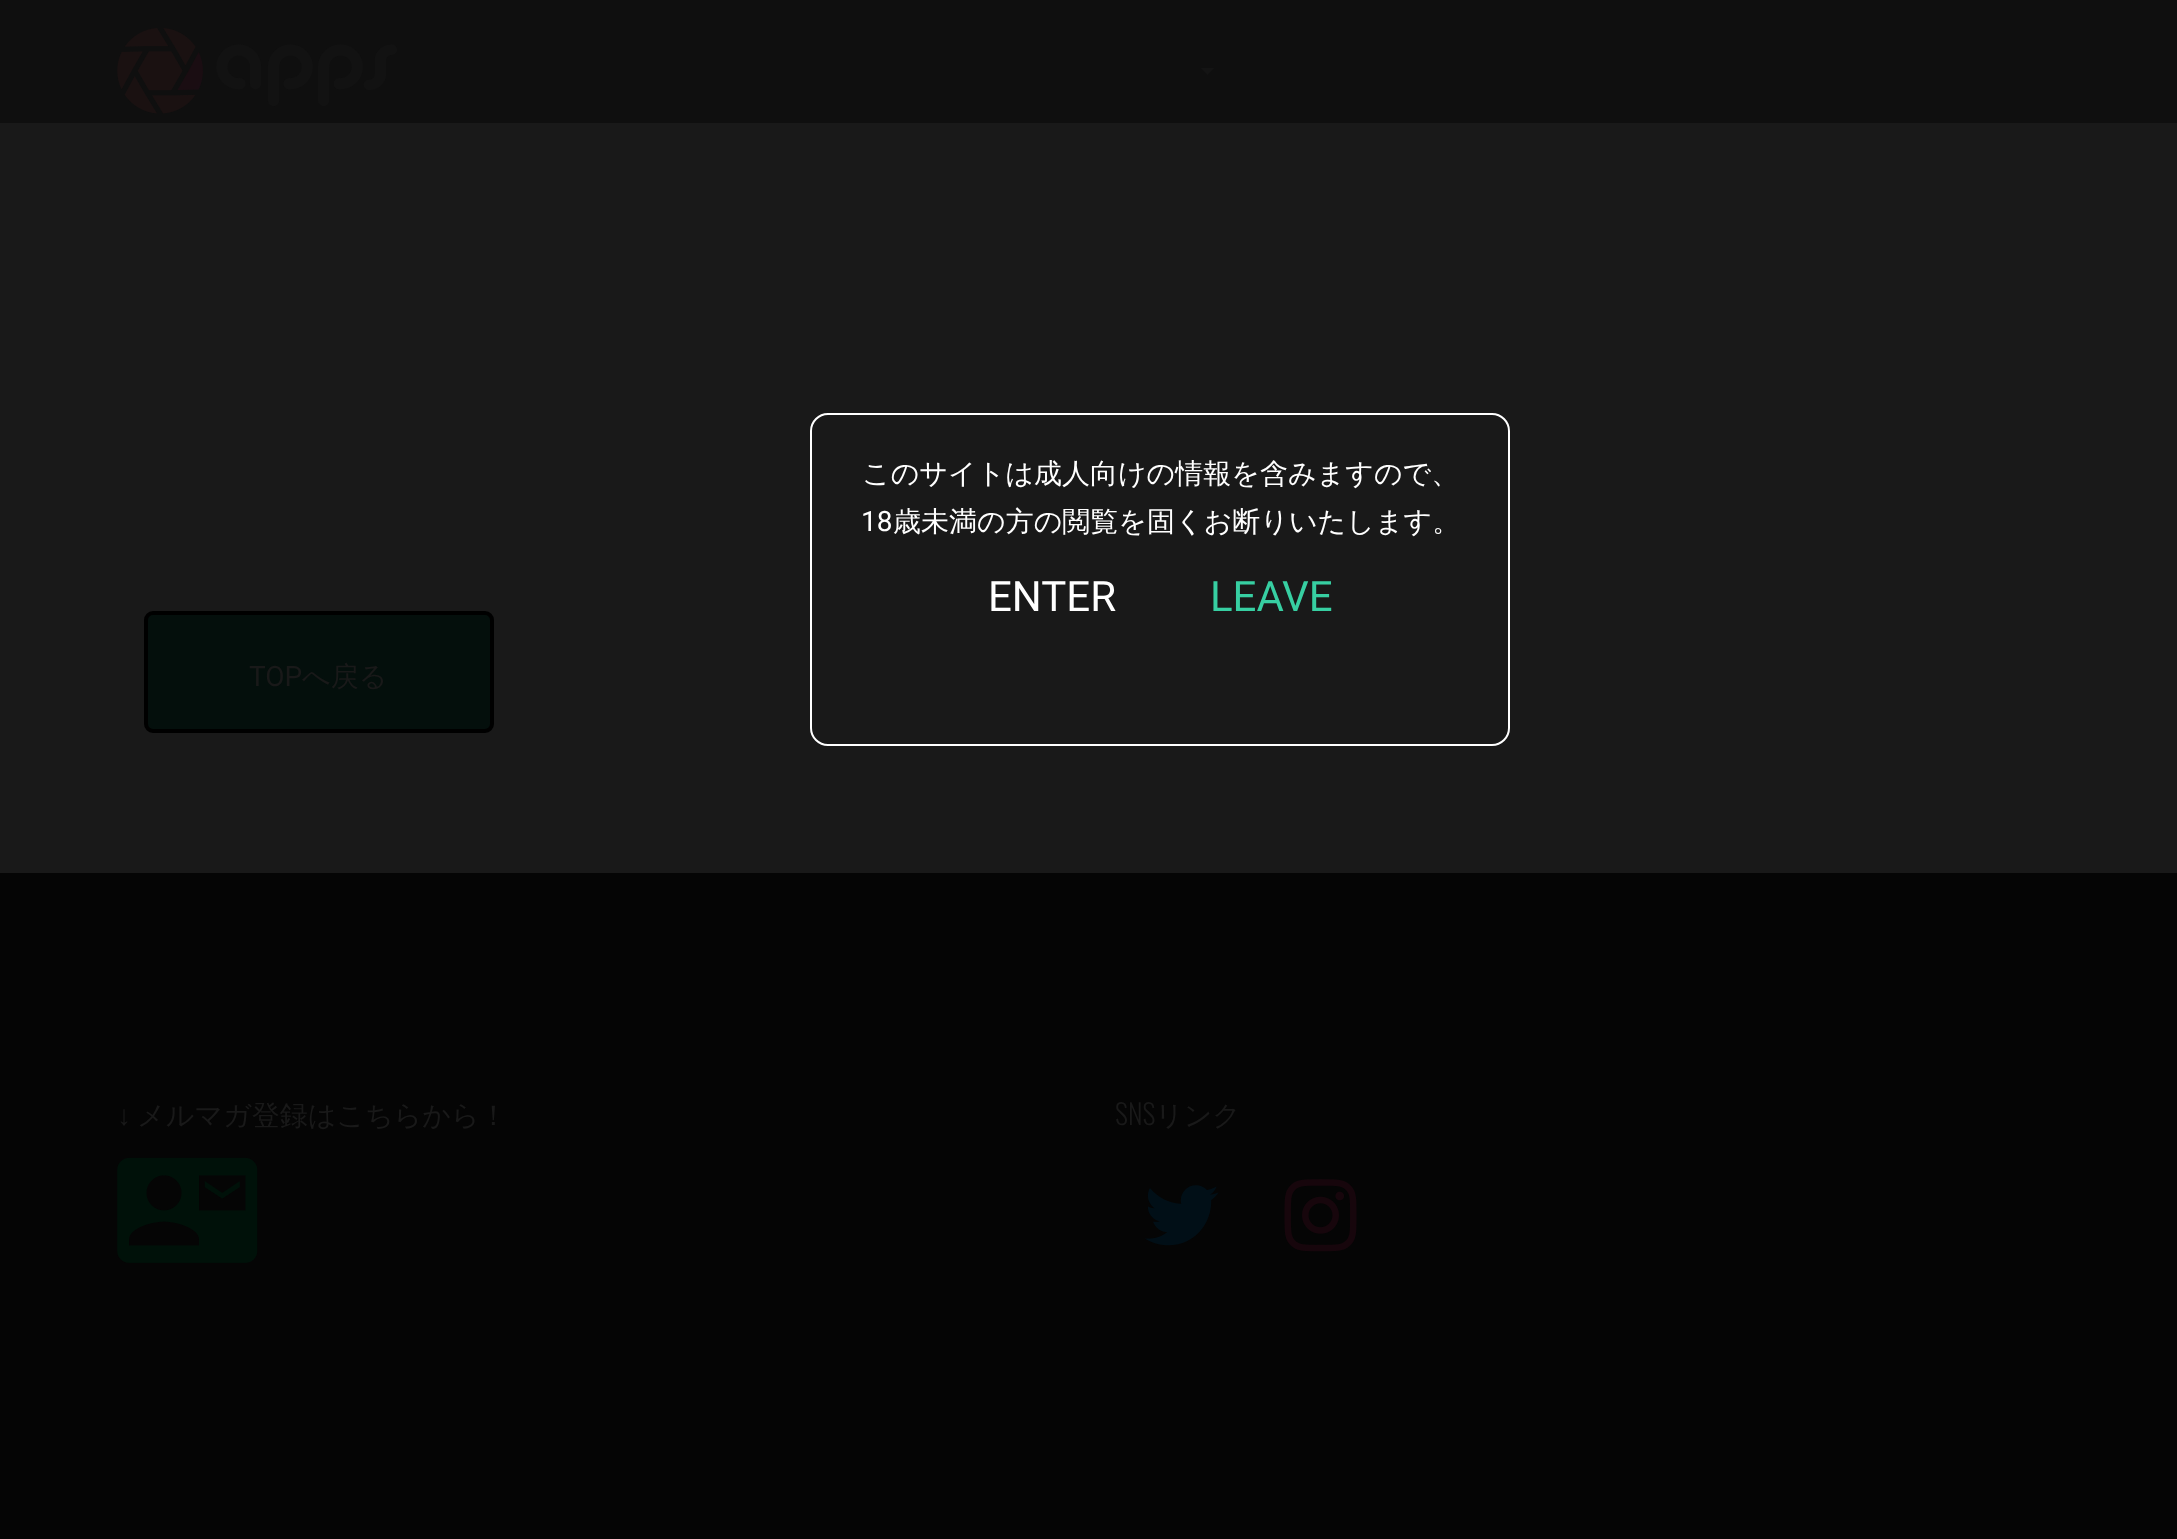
<svg xmlns="http://www.w3.org/2000/svg" width="2177" height="1539" viewBox="0 0 2177 1539">
  <rect width="100%" height="100%" fill="#191919"/>
  <rect x="811" y="414" width="698" height="331" rx="17" fill="none" stroke="#ffffff" stroke-width="2"/>
  <text x="862" y="483" font-family="WenQuanYi Zen Hei" font-size="28" font-weight="500" fill="#ffffff">このサイトは成人向けの情報を含みますので、</text>
  <text x="861" y="531" font-family="Roboto" font-size="28" fill="#ffffff">18</text>
  <text x="893" y="531" font-family="WenQuanYi Zen Hei" font-size="28" font-weight="500" fill="#ffffff">歳未満の方の閲覧を固くお断りいたします。</text>
  <text x="988" y="611" font-family="Roboto" font-size="42" fill="#ffffff">ENTER</text>
  <text x="1210" y="611" font-family="Roboto" font-size="42" fill="#37cfa2">LEAVE</text>
  <rect x="0" y="0" width="2177" height="123" fill="#0f0f0f"/>
  <image x="117" y="28" width="280" height="86" href="img1.png"/>
  <path d="M1200.5 68H1214.5L1207.5 75Z" fill="#141414"/>
  <rect x="146" y="613" width="346" height="118" rx="7" fill="#040f0c" stroke="#000000" stroke-width="4"/>
  <text x="249" y="686" font-family="Roboto" font-size="28" fill="#191919">TOP</text>
  <text x="302" y="686" font-family="WenQuanYi Zen Hei" font-size="28" font-weight="500" fill="#191919">へ戻る</text>
  <rect x="0" y="873" width="2177" height="666" fill="#050505"/>
  <text x="117" y="1125" font-family="Liberation Sans" font-size="28" fill="#191919">↓</text>
  <text x="137" y="1125" font-family="WenQuanYi Zen Hei" font-size="28" font-weight="500" fill="#191919">メルマガ登録はこちらから！</text>
  <image x="117" y="1157" width="141" height="106" href="img2.png"/>
  <text x="1115" y="1125" font-family="Oswald" font-size="28" font-weight="300" fill="#191919">SNS</text>
  <text x="1155" y="1125" font-family="WenQuanYi Zen Hei" font-size="28" font-weight="500" fill="#191919">リンク</text>
  <image x="1145" y="1185" width="74" height="61" href="img3.png"/>
  <image x="1284" y="1179" width="73" height="73" href="img4.png"/>
</svg>
